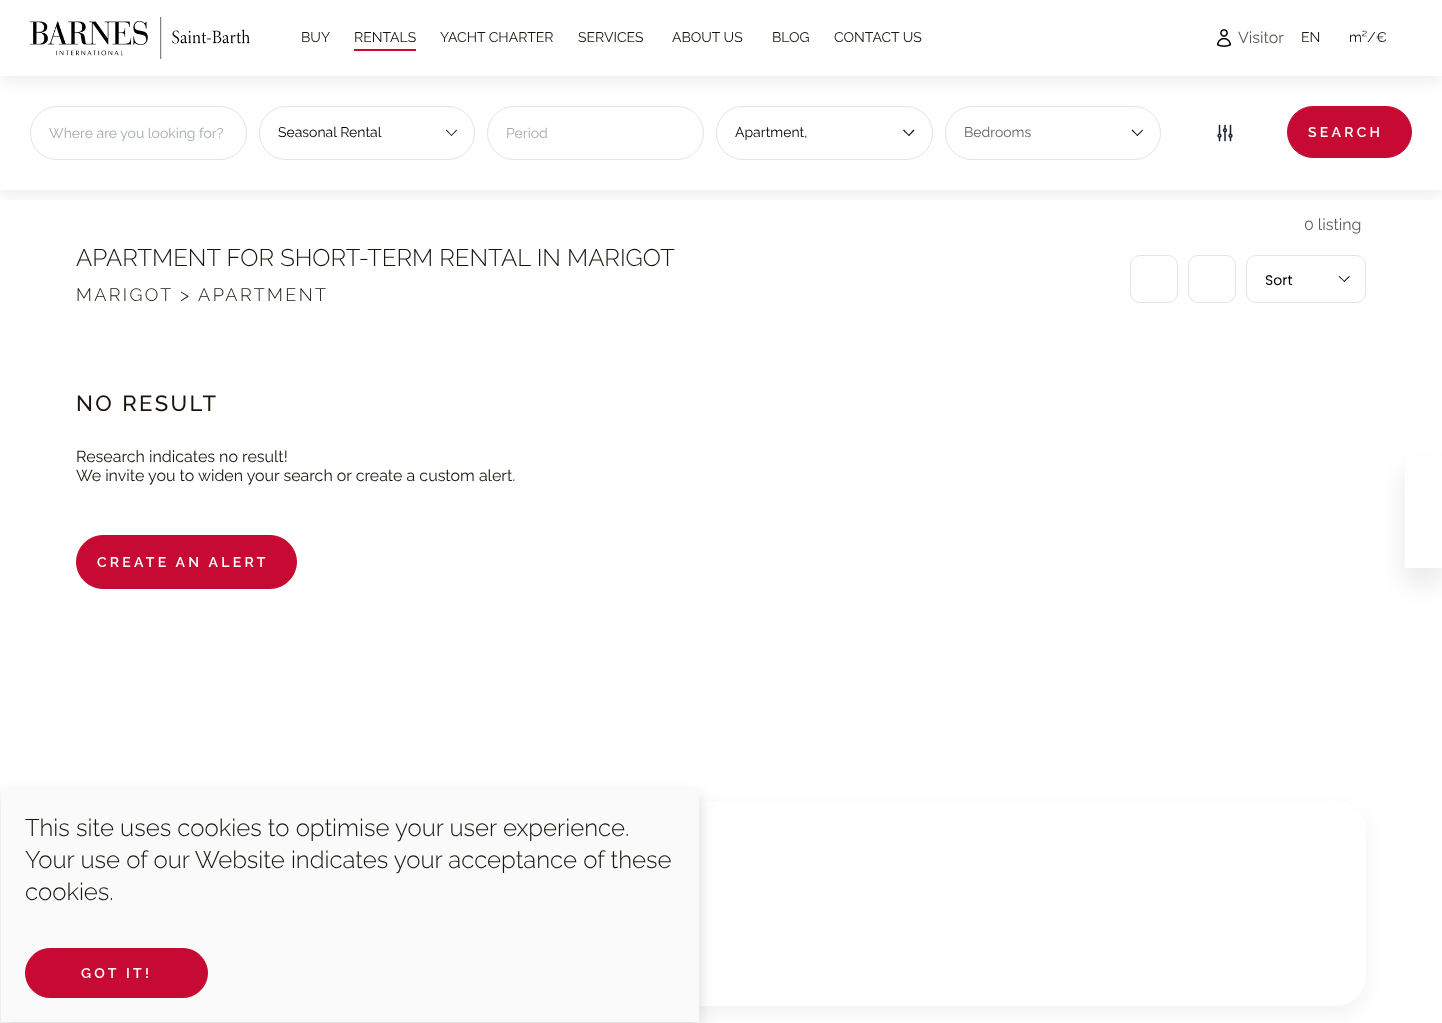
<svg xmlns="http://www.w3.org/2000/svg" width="1442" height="1023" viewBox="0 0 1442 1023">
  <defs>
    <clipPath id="clip1"><rect x="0" y="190" width="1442" height="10"/></clipPath>
    <filter id="blur1" x="-50%" y="-200%" width="200%" height="500%"><feGaussianBlur stdDeviation="9"/></filter>
    <clipPath id="clip2"><rect x="49" y="125" width="179" height="16"/></clipPath>
    <filter id="blur2" x="-50%" y="-200%" width="200%" height="500%"><feGaussianBlur stdDeviation="10"/></filter>
    <clipPath id="clip3"><path d="M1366 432H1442V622H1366ZM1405 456H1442V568H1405Z" clip-rule="evenodd"/></clipPath>
    <filter id="blur3" x="-50%" y="-200%" width="200%" height="500%"><feGaussianBlur stdDeviation="12.5"/></filter>
    <clipPath id="clip4"><path d="M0 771H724V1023H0ZM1 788H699V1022H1Z" clip-rule="evenodd"/></clipPath>
    <filter id="blur4" x="-50%" y="-200%" width="200%" height="500%"><feGaussianBlur stdDeviation="8"/></filter>
  </defs>
  <rect width="100%" height="100%" fill="#ffffff"/>
  <g clip-path="url(#clip1)">
    <rect x="0" y="80" width="1442" height="114" fill="#000000" fill-opacity="0.08" filter="url(#blur1)"/>
  </g>
  <rect x="30.5" y="106.5" width="216" height="53" rx="26.5" fill="none" stroke="#e4e4e4"/>
  <rect x="259.5" y="106.5" width="215" height="53" rx="26.5" fill="none" stroke="#e4e4e4"/>
  <rect x="487.5" y="106.5" width="216" height="53" rx="26.5" fill="none" stroke="#e4e4e4"/>
  <rect x="716.5" y="106.5" width="216" height="53" rx="26.5" fill="none" stroke="#e4e4e4"/>
  <rect x="945.5" y="106.5" width="215" height="53" rx="26.5" fill="none" stroke="#e4e4e4"/>
  <rect x="1287.5" y="106.5" width="124" height="51" rx="25.5" fill="#c70a33" stroke="#c70a33"/>
  <rect x="0" y="4" width="1442" height="76" fill="#000000" fill-opacity="0.08" filter="url(#blur1)"/>
  <rect x="0" y="0" width="1442" height="76" fill="#ffffff"/>
  <image x="30" y="17" width="220" height="42" href="img1.png"/>
  <text x="301" y="42" font-family="Raleway" font-size="14" fill="#1a140b">BUY</text>
  <text x="354" y="42" font-family="Raleway" font-size="14" fill="#1a140b">RENTALS</text>
  <rect x="354" y="49" width="62" height="2" fill="#c70a33"/>
  <text x="440" y="42" font-family="Raleway" font-size="14" fill="#1a140b">YACHT CHARTER</text>
  <text x="578" y="42" font-family="Raleway" font-size="14" fill="#1a140b">SERVICES</text>
  <text x="672" y="42" font-family="Raleway" font-size="14" fill="#1a140b">ABOUT US</text>
  <text x="772" y="42" font-family="Raleway" font-size="14" fill="#1a140b">BLOG</text>
  <text x="834" y="42" font-family="Raleway" font-size="14" fill="#1a140b">CONTACT US</text>
  <image x="1217" y="29" width="14" height="18" href="img2.png"/>
  <text x="1238" y="43" font-family="Raleway" font-size="16" fill="#5d5a54">Visitor</text>
  <text x="1301" y="42" font-family="Raleway" font-size="14" fill="#1a140b">EN</text>
  <text x="1349" y="42" font-family="Raleway" font-size="14" fill="#1a140b">m²/€</text>
  <g clip-path="url(#clip2)">
    <text x="49" y="138" font-family="Raleway" font-size="14" fill="#a3abb0">Where are you looking for?</text>
  </g>
  <text x="278" y="137" font-family="Raleway" font-size="14" fill="#000000">Seasonal Rental</text>
  <path d="M456.5 129.5L457 130.5L451.5 136L451 135.5Z" fill="#1a140b"/>
  <path d="M446.5 129.5L452 135.5L451.5 136L446 130.5Z" fill="#1a140b"/>
  <text x="506" y="138" font-family="Raleway" font-size="14" fill="#a3abb0">Period</text>
  <text x="735" y="137" font-family="Raleway" font-size="14" fill="#000000">Apartment,</text>
  <path d="M913.5 129.5L914.5 130.5L909 136L908 135.5Z" fill="#1a140b"/>
  <path d="M904 129.5L909.5 135.5L909 136L903 130.5Z" fill="#1a140b"/>
  <text x="964" y="137" font-family="Raleway" font-size="14" fill="#5c6368">Bedrooms</text>
  <path d="M1142.5 129.5L1143 130.5L1137.5 136L1136.5 135.5Z" fill="#1a140b"/>
  <path d="M1132.5 129.5L1138 135.5L1137.5 136L1131.5 130.5Z" fill="#1a140b"/>
  <image x="1217" y="124" width="16" height="18" href="img3.png"/>
  <text x="1308" y="137" font-family="Raleway" font-size="14" font-weight="600" letter-spacing="3.25" fill="#ffffff">SEARCH</text>
  <text x="1304" y="230" font-family="Raleway" font-size="16" fill="#595c5f">0 listing</text>
  <text x="76" y="266" font-family="Raleway" font-size="24" font-weight="300" fill="#1a140b">APARTMENT FOR SHORT-TERM RENTAL IN MARIGOT</text>
  <text x="76" y="301" font-family="Raleway" font-size="18" font-weight="300" letter-spacing="2.4" fill="#1a140b">MARIGOT &gt; APARTMENT</text>
  <rect x="1130.5" y="255.5" width="47" height="47" rx="9.5" fill="none" stroke="#e4e4e4"/>
  <rect x="1188.5" y="255.5" width="47" height="47" rx="9.5" fill="none" stroke="#e4e4e4"/>
  <rect x="1246.5" y="255.5" width="119" height="47" rx="9.5" fill="none" stroke="#e4e4e4"/>
  <text x="1265" y="285" font-family="Poppins" font-size="14" fill="#000000">Sort</text>
  <path d="M1349 276L1350 276.5L1344.5 282L1343.5 281.5Z" fill="#1a140b"/>
  <path d="M1339.5 276L1345 281.5L1344.5 282L1338.5 276.5Z" fill="#1a140b"/>
  <text x="76" y="411" font-family="Raleway" font-size="22" font-weight="500" letter-spacing="2.4" fill="#1a140b">NO RESULT</text>
  <text x="76" y="462" font-family="Raleway" font-size="16" fill="#1a140b">Research indicates no result!</text>
  <text x="76" y="481" font-family="Raleway" font-size="16" fill="#1a140b">We invite you to widen your search or create a custom alert.</text>
  <rect x="76.5" y="535.5" width="220" height="53" rx="26.5" fill="#c70a33" stroke="#c70a33"/>
  <text x="97" y="567" font-family="Raleway" font-size="14" font-weight="600" letter-spacing="3.25" fill="#ffffff">CREATE AN ALERT</text>
  <rect x="76" y="809" width="1290" height="205" rx="30" fill="#000000" fill-opacity="0.05" filter="url(#blur2)"/>
  <rect x="76" y="801" width="1290" height="205" rx="30" fill="#ffffff"/>
  <g clip-path="url(#clip3)">
    <rect x="1405" y="471" width="37" height="112" fill="#000000" fill-opacity="0.09" filter="url(#blur3)"/>
  </g>
  <rect x="0.5" y="787.5" width="699" height="235" fill="#fafafa" stroke="#ffffff"/>
  <g clip-path="url(#clip4)">
    <rect x="1" y="796" width="698" height="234" fill="#000000" fill-opacity="0.15" filter="url(#blur4)"/>
  </g>
  <text x="25" y="836" font-family="Raleway" font-size="24" font-weight="300" fill="#1a140b">This site uses cookies to optimise your user experience.</text>
  <text x="25" y="868" font-family="Raleway" font-size="24" font-weight="300" fill="#1a140b">Your use of our Website indicates your acceptance of these</text>
  <text x="25" y="900" font-family="Raleway" font-size="24" font-weight="300" fill="#1a140b">cookies.</text>
  <rect x="25.5" y="948.5" width="182" height="49" rx="24.5" fill="#c70a33" stroke="#c70a33"/>
  <text x="81" y="978" font-family="Raleway" font-size="14" font-weight="600" letter-spacing="3.25" fill="#ffffff">GOT IT!</text>
</svg>
